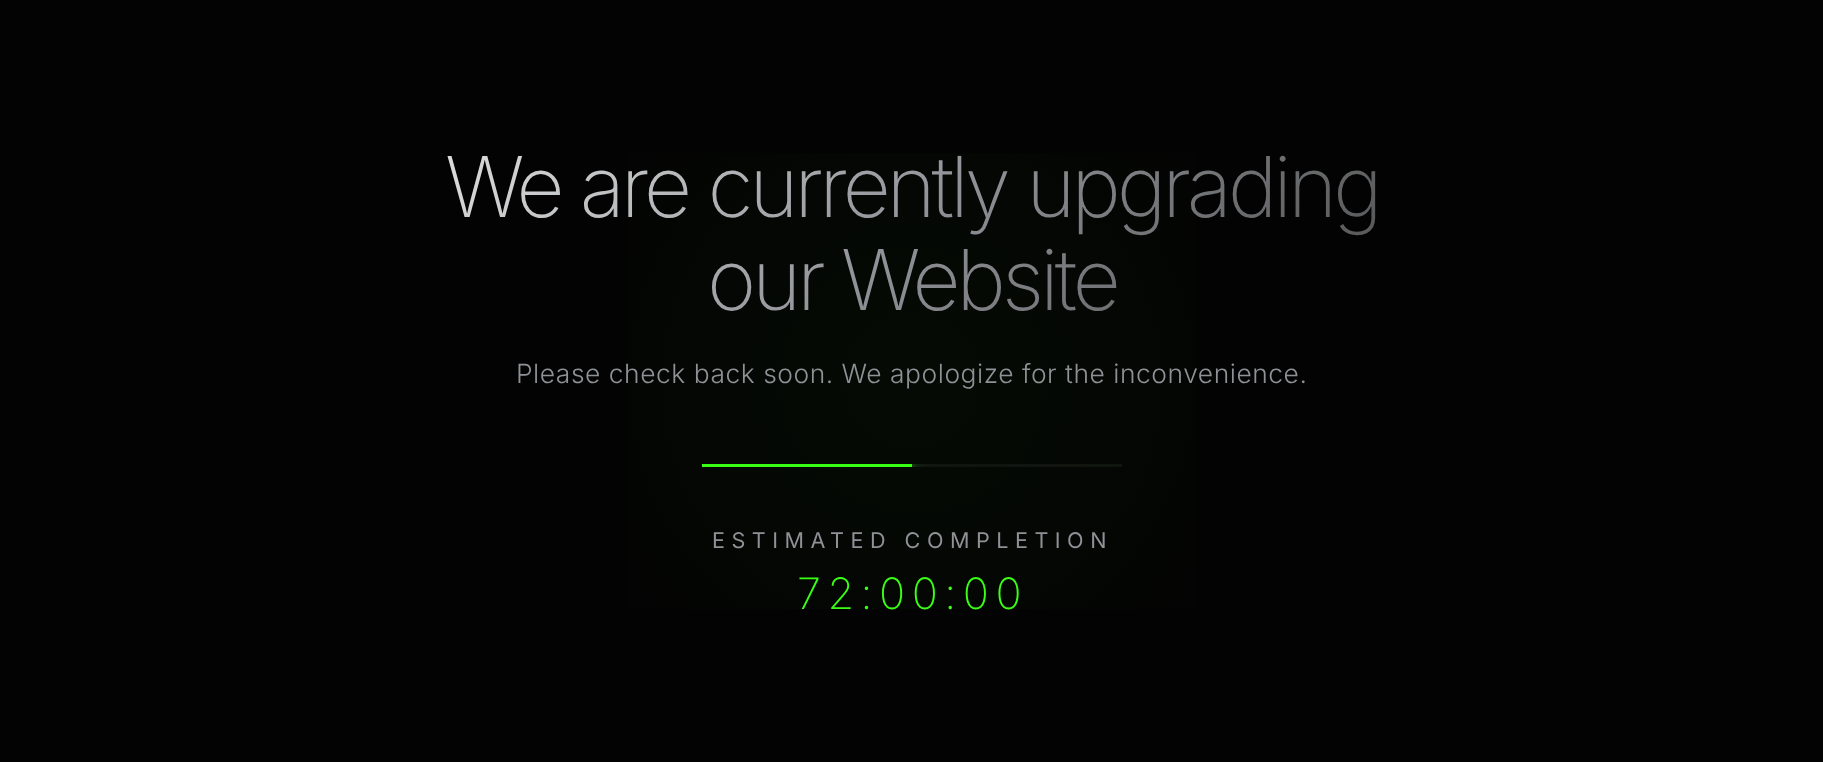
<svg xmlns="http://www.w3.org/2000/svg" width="1823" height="762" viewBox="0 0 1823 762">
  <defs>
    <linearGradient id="g1" gradientUnits="userSpaceOnUse" x1="618" y1="-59" x2="1206" y2="528"><stop offset="0" stop-color="#e2e2e2"/><stop offset="0.5" stop-color="#8e9196"/><stop offset="1" stop-color="#4a4a4a"/></linearGradient>
    <radialGradient id="g2" gradientUnits="userSpaceOnUse" cx="912" cy="381" r="593"><stop offset="0" stop-color="#050b04"/><stop offset="0.7" stop-color="#030303"/></radialGradient>
    <clipPath id="clip1"><rect x="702" y="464" width="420" height="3"/></clipPath>
    <filter id="blur1" x="-50%" y="-200%" width="200%" height="500%"><feGaussianBlur stdDeviation="4"/></filter>
    <filter id="blur2" x="-50%" y="-200%" width="200%" height="500%"><feGaussianBlur stdDeviation="11"/></filter>
  </defs>
  <rect width="100%" height="100%" fill="#030303"/>
  <rect x="628" y="153" width="568" height="456" fill="url(#g2)"/>
  <text x="445" y="217" font-family="Inter" font-size="84" font-weight="200" letter-spacing="-4.2" fill="url(#g1)">We are currently upgrading</text>
  <text x="707" y="310" font-family="Inter" font-size="84" font-weight="200" letter-spacing="-4.2" fill="url(#g1)">our Website</text>
  <text x="516" y="383" font-family="Inter" font-size="26.4" font-weight="300" letter-spacing="0.53" fill="#8e9196">Please check back soon. We apologize for the inconvenience.</text>
  <rect x="912" y="464" width="210" height="3" fill="#111510"/>
  <g clip-path="url(#clip1)">
    <rect x="702" y="464" width="210" height="3" fill="#39ff14" filter="url(#blur1)"/>
    <rect x="702" y="464" width="210" height="3" fill="#39ff14" filter="url(#blur2)"/>
  </g>
  <rect x="702" y="464" width="210" height="3" fill="#39ff14"/>
  <text x="712" y="548" font-family="Inter" font-size="21.6" letter-spacing="6.5" fill="#8e9196">ESTIMATED COMPLETION</text>
  <text x="797" y="609" font-family="Inter" font-size="43.25" font-weight="200" letter-spacing="6.5" fill="#39ff14">72:00:00</text>
</svg>
